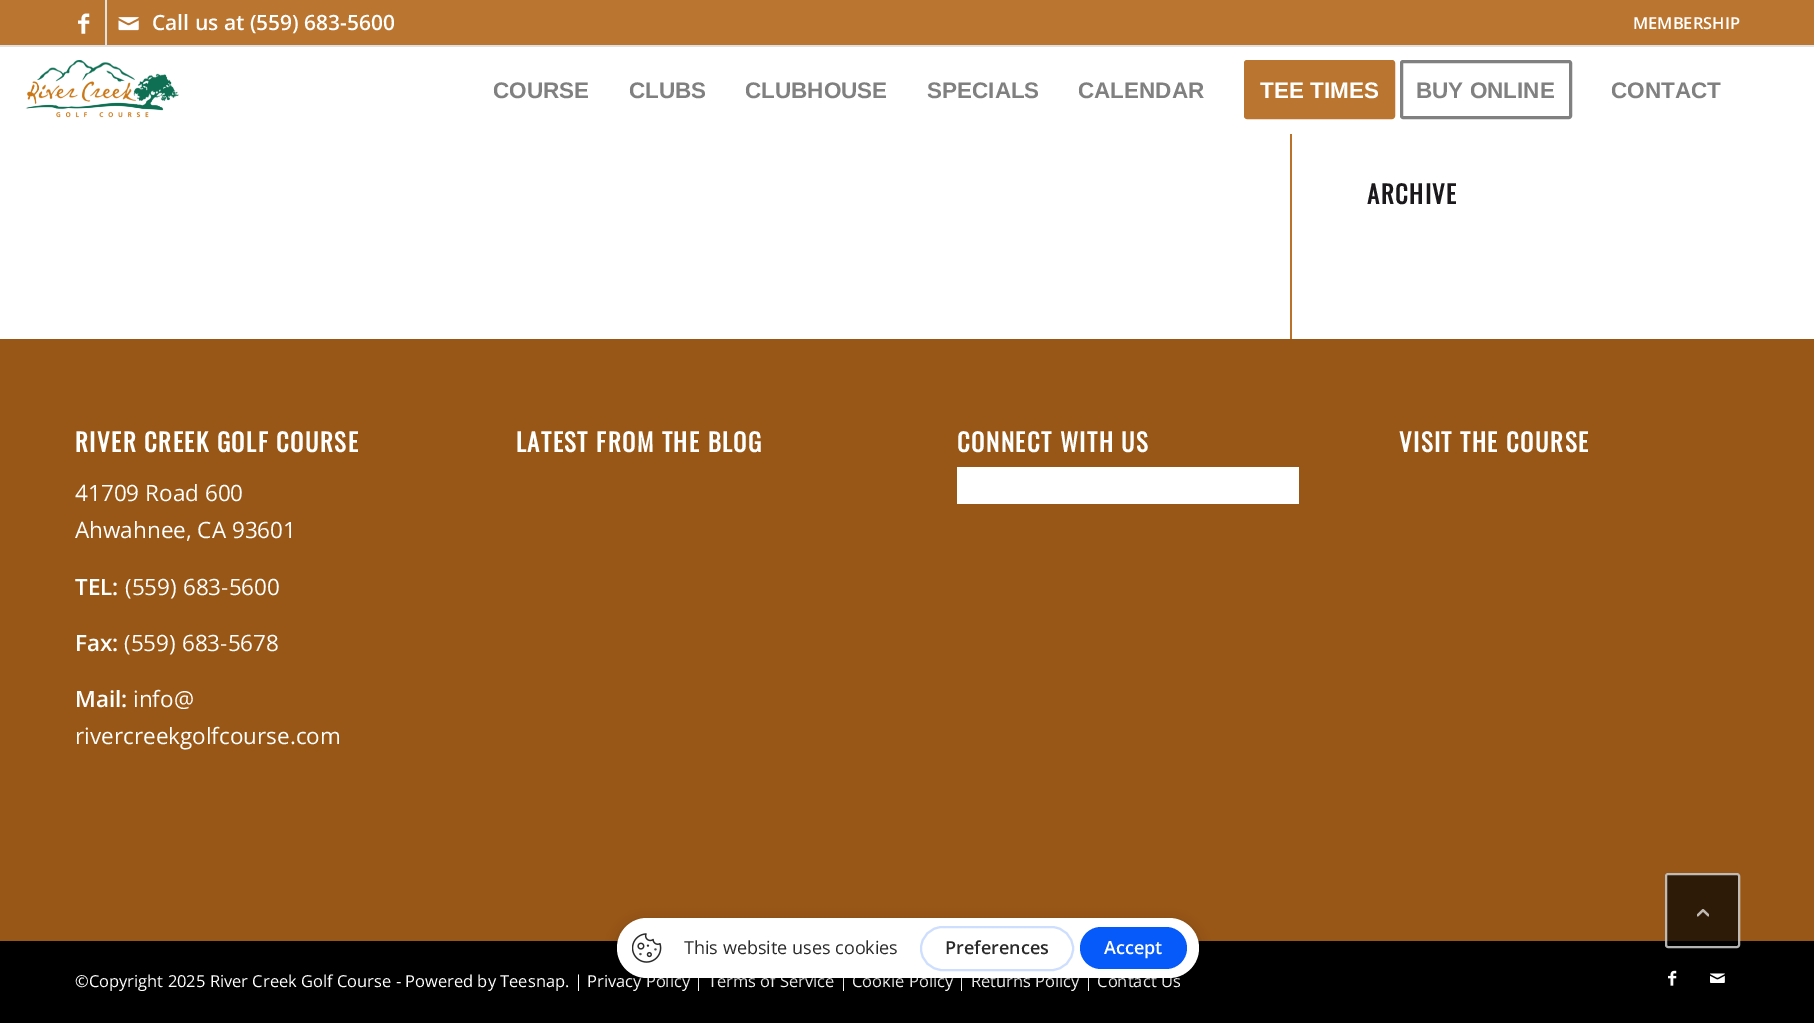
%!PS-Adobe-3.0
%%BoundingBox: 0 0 1814 1023
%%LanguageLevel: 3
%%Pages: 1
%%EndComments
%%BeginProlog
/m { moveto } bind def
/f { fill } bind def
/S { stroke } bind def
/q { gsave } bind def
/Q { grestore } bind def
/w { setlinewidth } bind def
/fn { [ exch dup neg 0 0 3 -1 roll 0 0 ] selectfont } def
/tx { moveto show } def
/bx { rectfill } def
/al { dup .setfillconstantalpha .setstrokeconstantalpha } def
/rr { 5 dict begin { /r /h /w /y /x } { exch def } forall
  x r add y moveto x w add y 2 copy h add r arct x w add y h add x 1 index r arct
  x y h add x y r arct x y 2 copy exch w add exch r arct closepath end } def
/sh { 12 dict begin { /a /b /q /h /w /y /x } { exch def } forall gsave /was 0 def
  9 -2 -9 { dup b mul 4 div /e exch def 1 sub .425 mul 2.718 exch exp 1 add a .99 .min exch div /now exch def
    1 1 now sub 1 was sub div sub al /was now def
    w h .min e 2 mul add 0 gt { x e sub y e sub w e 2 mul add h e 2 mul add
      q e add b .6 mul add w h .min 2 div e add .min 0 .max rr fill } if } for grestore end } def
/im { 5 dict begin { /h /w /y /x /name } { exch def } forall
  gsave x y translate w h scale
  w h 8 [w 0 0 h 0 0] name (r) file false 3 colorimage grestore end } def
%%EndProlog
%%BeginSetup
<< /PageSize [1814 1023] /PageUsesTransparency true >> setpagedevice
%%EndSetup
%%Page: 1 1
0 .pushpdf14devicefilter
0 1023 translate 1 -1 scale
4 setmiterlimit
1 setgray
0 0 1814 1023 bx
0.729 0.459 0.188 setrgbcolor
0 0 1814 45 bx
0.882 setgray
0 45 1814 2 bx
105 0 2 45 bx
(image0.raw) 78 13 12 21 im
(image1.raw) 118 17 21 14 im
/OpenSans-SemiBold 21 fn
1 setgray
(Call us at \(559\) 683-5600) 152 30 tx
/OpenSans-SemiBold 16.5 fn
(MEMBERSHIP) 1633 29 tx
(image2.raw) 25 60 154 58 im
/LiberationSans-Bold 22.5 fn
0.502 setgray
(COURSE) 493 98 tx
(CLUBS) 629 98 tx
(CLUBHOUSE) 745 98 tx
(SPECIALS) 927 98 tx
(CALENDAR) 1078 98 tx
0.729 0.459 0.188 setrgbcolor
1245.5 61.5 148 56 1.5 rr q f Q
3 w
S
1 setgray
(TEE TIMES) 1260 98 tx
0.502 setgray
1401.5 61.5 169 56 1.5 rr S
(BUY ONLINE) 1416 98 tx
(CONTACT) 1611 98 tx
0.729 0.447 0.165 setrgbcolor
1290 134 2 205 bx
/Oswald-Bold 24.75 fn
0.11 0.098 0.11 setrgbcolor
1367 204 m 1.5 0 (ARCHIVE) ashow
0.596 0.341 0.086 setrgbcolor
0 339 1814 602 bx
1 setgray
75 452 m 1.5 0 (RIVER CREEK GOLF COURSE) ashow
/OpenSans-Regular 22.5 fn
(41709 Road 600) 75 501 tx
(Ahwahnee, CA 93601) 75 538 tx
/OpenSans-SemiBold 22.5 fn
(TEL:) 75 595 tx
/OpenSans-Regular 22.5 fn
(\(559\) 683-5600) 125 595 tx
/OpenSans-SemiBold 22.5 fn
(Fax:) 75 651 tx
/OpenSans-Regular 22.5 fn
(\(559\) 683-5678) 124 651 tx
/OpenSans-SemiBold 22.5 fn
(Mail:) 75 707 tx
/OpenSans-Regular 22.5 fn
(info@) 133 707 tx
(rivercreekgolfcourse.com) 75 744 tx
/Oswald-Bold 24.75 fn
516 452 m 1.5 0 (LATEST FROM THE BLOG) ashow
957 452 m 1.5 0 (CONNECT WITH US) ashow
957 467 342 37 bx
1399 452 m 1.5 0 (VISIT THE COURSE) ashow
0 setgray
0 941 1814 82 bx
/OpenSans-Regular 16.5 fn
1 setgray
(©Copyright 2025 River Creek Golf Course - Powered by Teesnap. | Privacy Policy | Terms of Service | Cookie Policy | Returns Policy | Contact Us) 75 987 tx
(image3.raw) 1668 970 9 16 im
(image4.raw) 1710 973 15 10 im
0 setgray
617 921 582 60 30 6 0.2 sh
1 setgray
617 918 582 60 30 rr f
(image5.raw) 632 933 30 30 im
/OpenSans-Regular 18 fn
0.165 setgray
(This website uses cookies) 684 954 tx
0.804 0.871 0.996 setrgbcolor
2 w
921 927 152 43 21.5 rr S
/OpenSans-SemiBold 18 fn
0.165 setgray
(Preferences) 945 954 tx
0.024 0.353 0.976 setrgbcolor
1080 927 107 42 21 rr f
1 setgray
(Accept) 1104 954 tx
0.7 al
0 setgray
1665 873 75 75 3 rr f
1 setgray
1666 874 73 73 2 rr S
1 al
(image6.raw) 1697 909 12 8 im
.poppdf14devicefilter showpage
%%EOF
